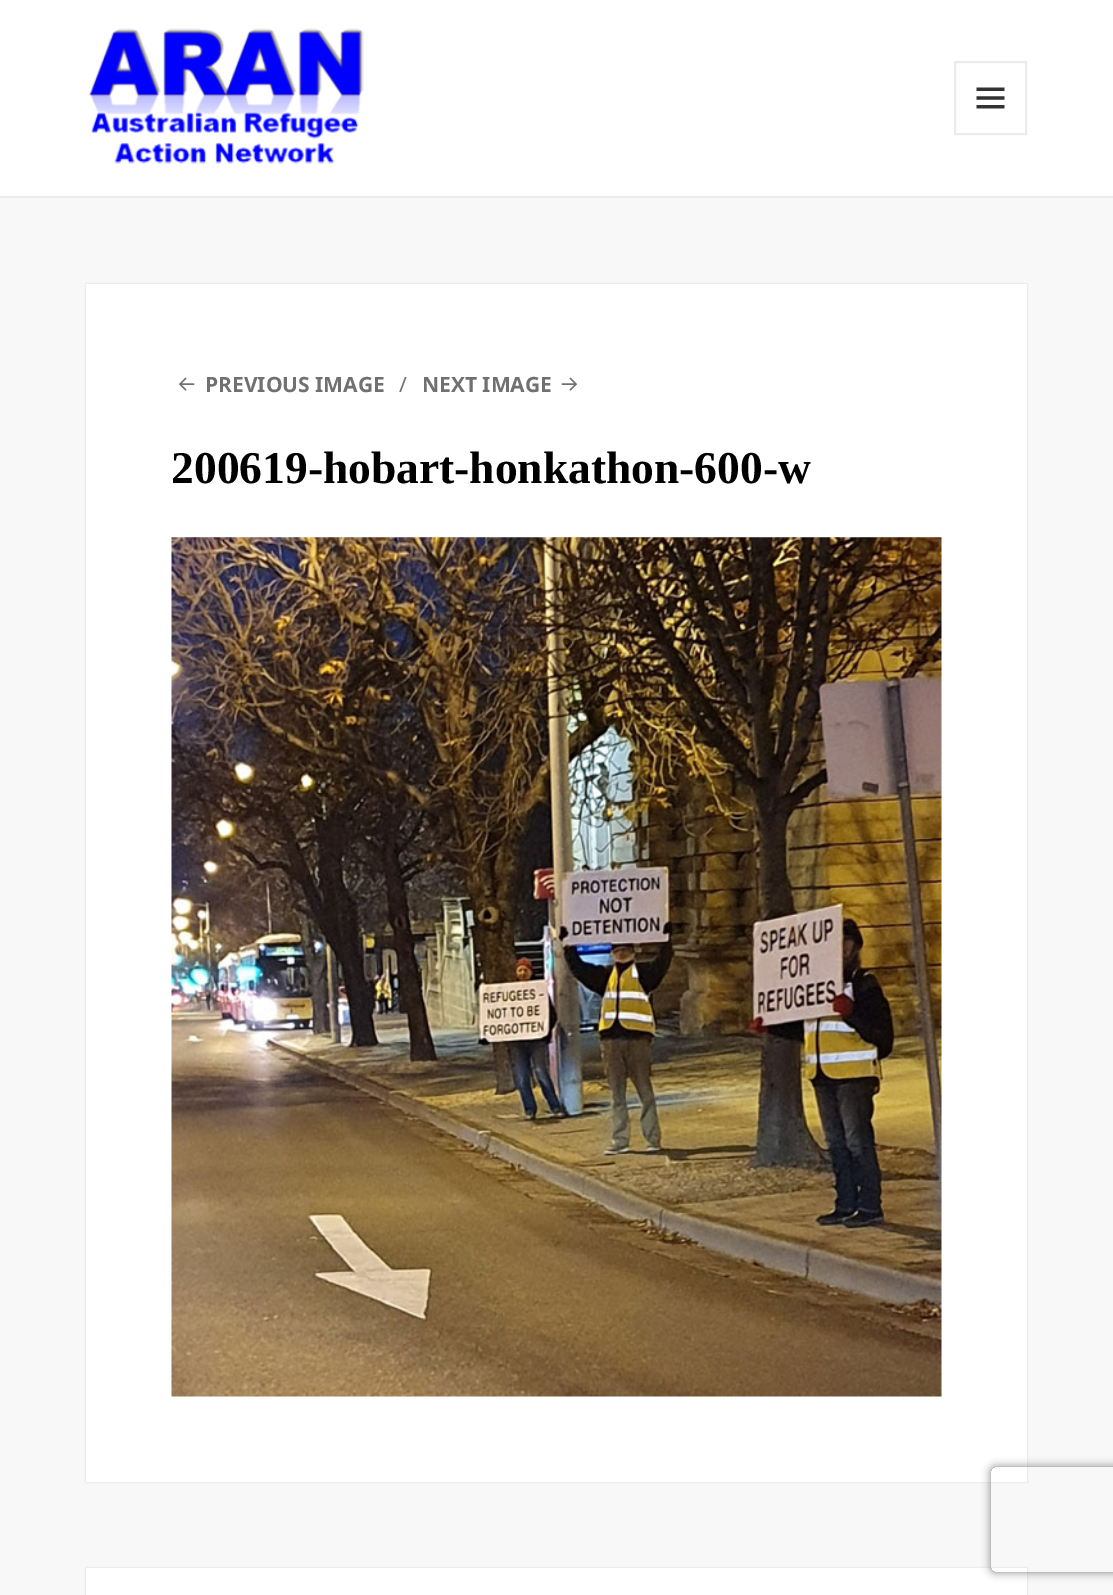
%!PS-Adobe-3.0
%%BoundingBox: 0 0 1113 1595
%%LanguageLevel: 3
%%Pages: 1
%%EndComments
%%BeginProlog
/m { moveto } bind def
/l { lineto } bind def
/c { curveto } bind def
/h { closepath } bind def
/q { gsave } bind def
/Q { grestore } bind def
/w { setlinewidth } bind def
/fn { [ exch dup neg 0 0 3 -1 roll 0 0 ] selectfont } def
/tx { moveto show } def
/bx { rectfill } def
/al { dup .setfillconstantalpha .setstrokeconstantalpha } def
/rr { 5 dict begin { /r /h /w /y /x } { exch def } forall
  x r add y moveto x w add y 2 copy h add r arct x w add y h add x 1 index r arct
  x y h add x y r arct x y 2 copy exch w add exch r arct closepath end } def
/sh { 12 dict begin { /a /b /q /h /w /y /x } { exch def } forall gsave /was 0 def
  9 -2 -9 { dup b mul 4 div /e exch def 1 sub .425 mul 2.718 exch exp 1 add a .99 .min exch div /now exch def
    1 1 now sub 1 was sub div sub al /was now def
    w h .min e 2 mul add 0 gt { x e sub y e sub w e 2 mul add h e 2 mul add
      q e add b .6 mul add w h .min 2 div e add .min 0 .max rr fill } if } for grestore end } def
/im { 5 dict begin { /h /w /y /x /name } { exch def } forall
  gsave x y translate w h scale
  w h 8 [w 0 0 h 0 0] name (r) file false 3 colorimage grestore end } def
%%EndProlog
%%BeginSetup
<< /PageSize [1113 1595] /PageUsesTransparency true >> setpagedevice
%%EndSetup
%%Page: 1 1
0 .pushpdf14devicefilter
0 1595 translate 1 -1 scale
4 setmiterlimit
0.973 setgray
0 0 1113 1595 bx
1 setgray
0 0 1113 196 bx
0.922 setgray
0 196 1113 2 bx
(image0.raw) 89 28 275 136 im
2 w
955 62 71 72 rectstroke
(image1.raw) 976 87 29 22 im
0 setgray
86 284 941 1198 0 1 0.15 sh
1 setgray
86 284 941 1198 bx
(image2.raw) 178 377 17 14 im
/NotoSans-Bold 21 fn
0.439 setgray
(PREVIOUS IMAGE) 205 392 tx
/NotoSans-Regular 21 fn
(∕) 399 392 tx
/NotoSans-Bold 21 fn
(NEXT IMAGE) 422 392 tx
(image3.raw) 561 377 17 14 im
/LiberationSerif-Bold 45.5 fn
0 setgray
(200619-hobart-honkathon-600-w) 171 483 tx
(image4.raw) 171 537 771 860 im
86 1568 941 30 0 1 0.15 sh
1 setgray
86 1568 941 27 bx
q
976 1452 m 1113 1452 l 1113 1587 l 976 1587 l h 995 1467 m 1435 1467 l 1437 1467 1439 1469 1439 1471 c 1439 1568 l 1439 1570 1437 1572 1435 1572 c 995 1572 l 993 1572 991 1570 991 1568 c 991 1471 l 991 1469 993 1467 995 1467 c h eoclip newpath
0.502 setgray
991 1467 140 105 4 4.5 1 sh
Q
.poppdf14devicefilter showpage
%%EOF
